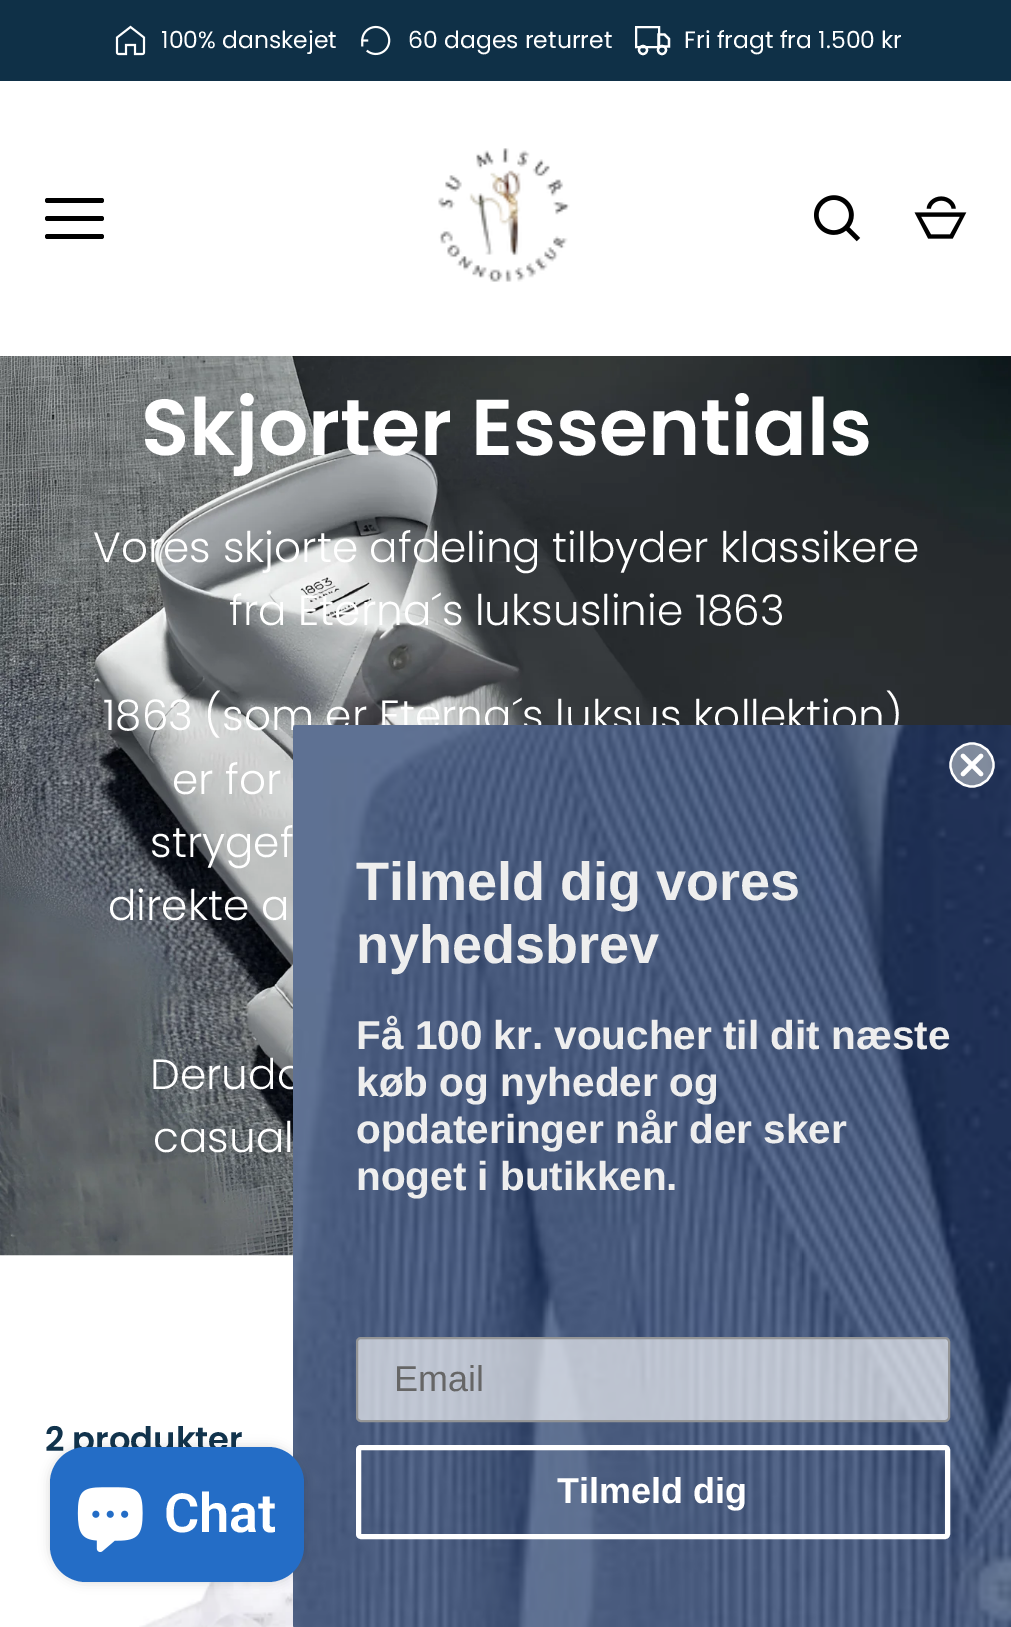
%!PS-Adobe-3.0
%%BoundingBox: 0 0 1011 1627
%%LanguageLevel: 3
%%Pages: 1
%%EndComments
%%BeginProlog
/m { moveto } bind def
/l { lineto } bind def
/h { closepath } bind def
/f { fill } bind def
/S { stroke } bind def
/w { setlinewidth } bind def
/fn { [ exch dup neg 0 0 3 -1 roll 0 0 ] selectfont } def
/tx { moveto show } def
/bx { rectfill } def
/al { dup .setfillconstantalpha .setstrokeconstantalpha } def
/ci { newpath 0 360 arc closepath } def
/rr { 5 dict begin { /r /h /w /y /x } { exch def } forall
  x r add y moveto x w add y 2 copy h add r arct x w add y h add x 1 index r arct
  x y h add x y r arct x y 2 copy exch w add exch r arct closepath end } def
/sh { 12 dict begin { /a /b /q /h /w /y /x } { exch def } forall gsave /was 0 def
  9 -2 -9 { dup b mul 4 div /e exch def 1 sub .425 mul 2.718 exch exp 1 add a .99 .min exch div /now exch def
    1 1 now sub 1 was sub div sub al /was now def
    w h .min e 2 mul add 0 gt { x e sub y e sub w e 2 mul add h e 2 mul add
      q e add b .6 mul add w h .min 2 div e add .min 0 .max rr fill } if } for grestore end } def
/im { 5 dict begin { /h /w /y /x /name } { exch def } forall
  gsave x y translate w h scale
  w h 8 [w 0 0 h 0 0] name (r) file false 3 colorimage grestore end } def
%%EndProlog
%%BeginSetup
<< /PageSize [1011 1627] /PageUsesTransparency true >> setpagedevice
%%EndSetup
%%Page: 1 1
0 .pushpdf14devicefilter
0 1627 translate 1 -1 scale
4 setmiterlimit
1 setgray
0 0 1011 1627 bx
0.059 0.188 0.278 setrgbcolor
0 0 1011 81 bx
(image0.raw) 115 25 31 31 im
/Poppins-Regular 23.5 fn
1 setgray
(100% danskejet) 161 48 tx
(image1.raw) 361 25 30 31 im
(60 dages returret) 408 48 tx
2 w
636 27 23 20 rectstroke
2.2 w
658.5 34.5 m 664.5 34.5 l 669 39 l 669 46.5 l 658.5 46.5 l h S
643 50 4 ci S
662 50 4 ci S
(Fri fragt fra 1.500 kr) 684 48 tx
0 setgray
45 198 59 5 2.5 rr f
45 216 59 5 2.5 rr f
45 234 59 5 2.5 rr f
(image2.raw) 438 148 132 134 im
(image3.raw) 814 195 47 47 im
(image4.raw) 914 196 53 43 im
(image5.raw) 0 356 1011 900 im
/Poppins-SemiBold 79.25 fn
1 setgray
(Skjorter Essentials) 141 455 tx
/Poppins-Light 42.2 fn
(Vores skjorte afdeling tilbyder klassikere) 93 562 tx
(fra Eterna´s luksuslinie 1863) 229 625 tx
(1863 \(som er Eterna´s luksus kollektion\)) 103 730 tx
(er for) 172 794 tx
(strygef) 150 857 tx
(direkte a) 108 920 tx
(Derudo) 150 1089 tx
(casual) 153 1152 tx
/Poppins-SemiBold 33.75 fn
0.067 0.2 0.298 setrgbcolor
(2 produkter) 45 1451 tx
(image6.raw) 139 1571 155 56 im
(image8.raw) 293 725 718 902 im
0 setgray
50 1447 254 135 36 5.5 0.15 sh
0.141 0.427 0.776 setrgbcolor
50 1447 254 135 36 rr f
(image7.raw) 77 1487 66 65 im
/Roboto-SemiBold 54 fn
1 setgray
(Chat) 164 1532 tx
0.65 al
0.706 0.733 0.765 setrgbcolor
972 765 21.5 ci f
1 al
1 setgray
972 765 21.5 ci S
4.5 w
1 setlinecap
1 setlinejoin
963 756 m 981 774 l 963 774 m 981 756 l h S
/LiberationSans-Bold 54 fn
0.933 setgray
(Tilmeld dig vores) 356 900 tx
(nyhedsbrev) 356 963 tx
/LiberationSans-Bold 40.5 fn
(Få 100 kr. voucher til dit næste) 356 1049 tx
(køb og nyheder og) 356 1096 tx
(opdateringer når der sker) 356 1143 tx
(noget i butikken.) 356 1190 tx
0.64 al
1 setgray
357 1338 592 83 4 rr f
1 al
0.58 0.584 0.588 setrgbcolor
2 w
0 setlinecap
0 setlinejoin
357 1338 592 83 4 rr S
/LiberationSans-Regular 36 fn
0.4 setgray
(Email) 394 1391 tx
1 setgray
5 w
358.5 1447.5 589 89 2.5 rr S
/LiberationSans-Bold 36 fn
(Tilmeld dig) 557 1503 tx
.poppdf14devicefilter showpage
%%EOF
